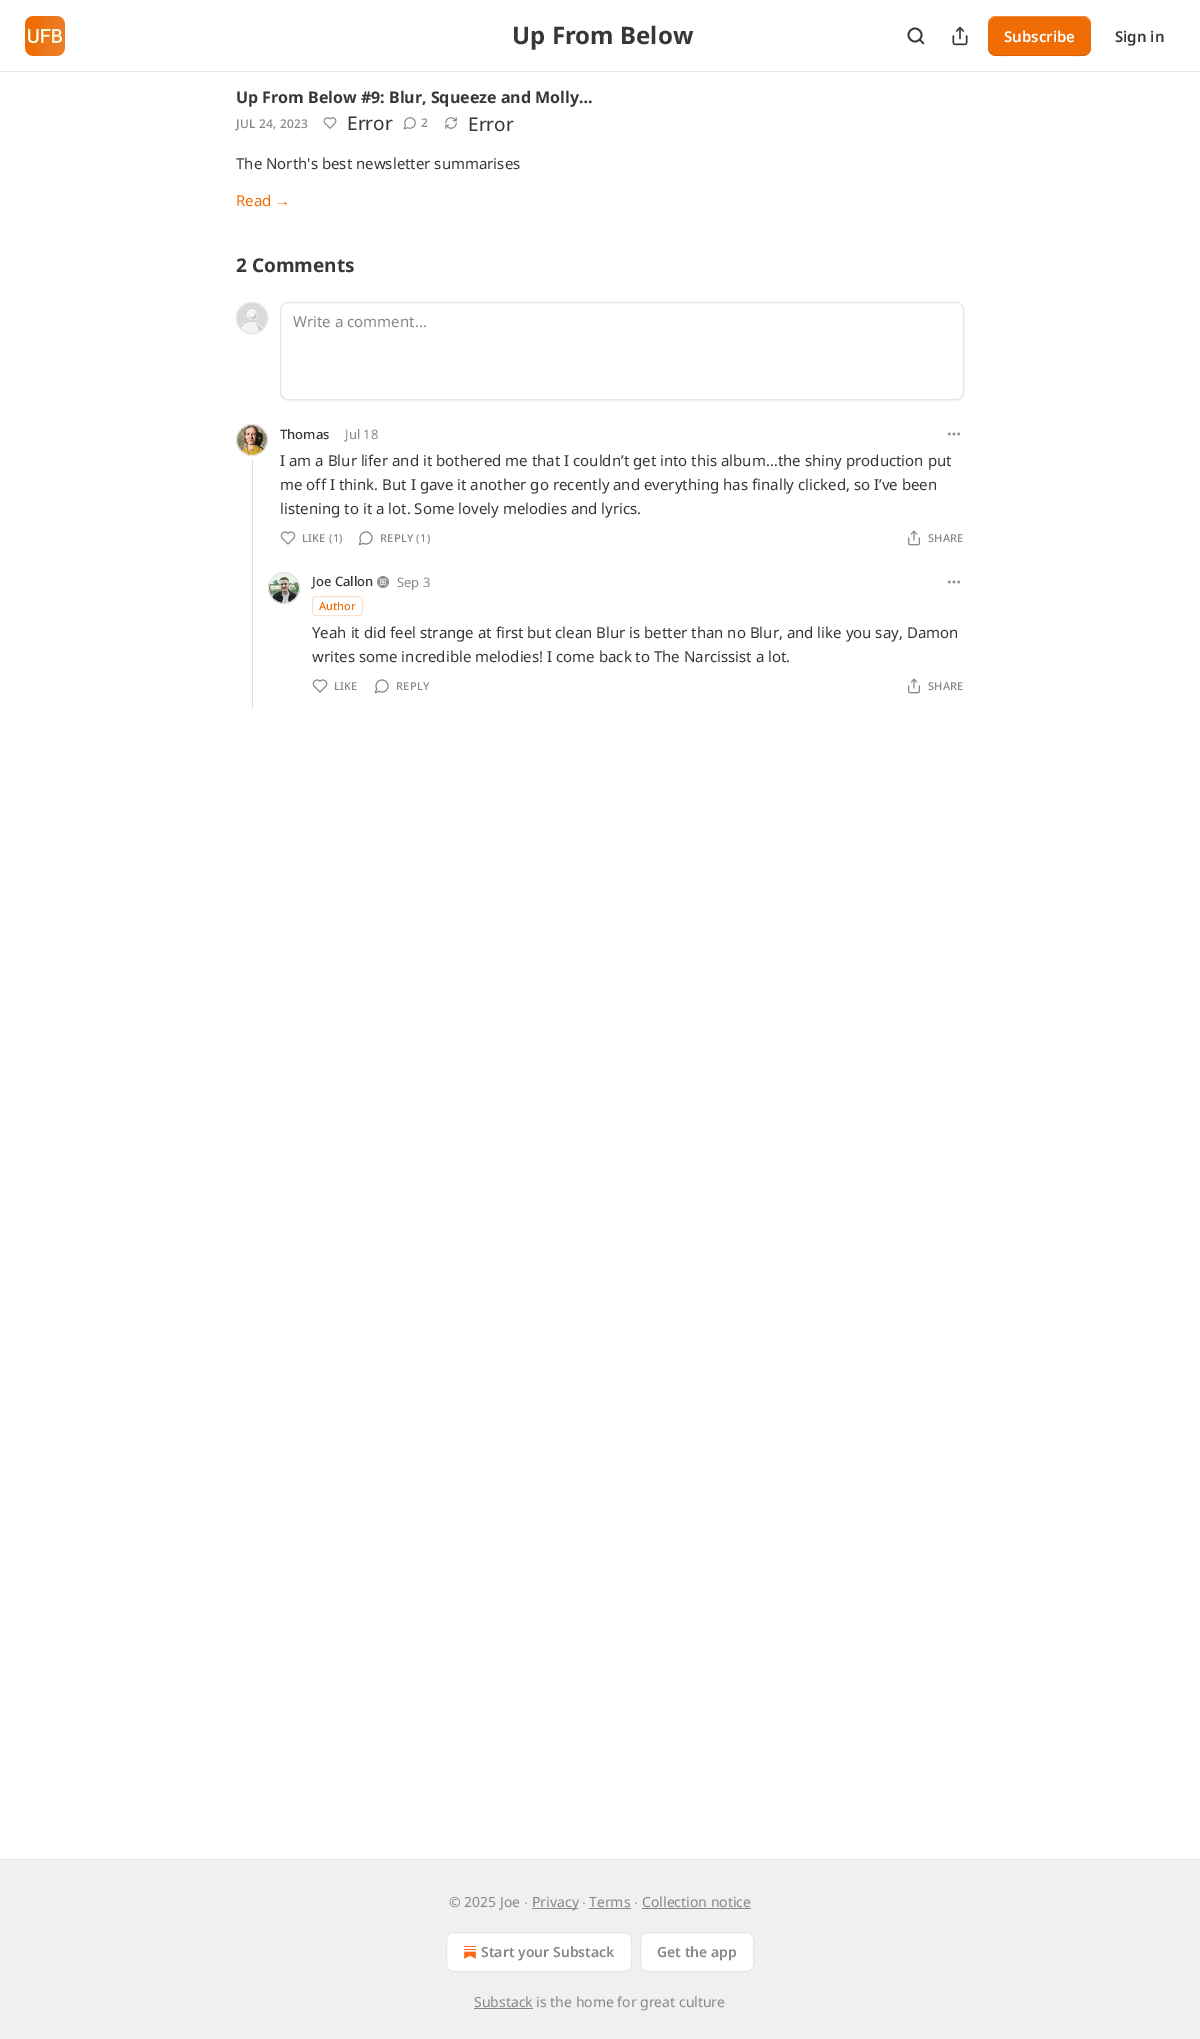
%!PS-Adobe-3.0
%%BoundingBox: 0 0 1200 2039
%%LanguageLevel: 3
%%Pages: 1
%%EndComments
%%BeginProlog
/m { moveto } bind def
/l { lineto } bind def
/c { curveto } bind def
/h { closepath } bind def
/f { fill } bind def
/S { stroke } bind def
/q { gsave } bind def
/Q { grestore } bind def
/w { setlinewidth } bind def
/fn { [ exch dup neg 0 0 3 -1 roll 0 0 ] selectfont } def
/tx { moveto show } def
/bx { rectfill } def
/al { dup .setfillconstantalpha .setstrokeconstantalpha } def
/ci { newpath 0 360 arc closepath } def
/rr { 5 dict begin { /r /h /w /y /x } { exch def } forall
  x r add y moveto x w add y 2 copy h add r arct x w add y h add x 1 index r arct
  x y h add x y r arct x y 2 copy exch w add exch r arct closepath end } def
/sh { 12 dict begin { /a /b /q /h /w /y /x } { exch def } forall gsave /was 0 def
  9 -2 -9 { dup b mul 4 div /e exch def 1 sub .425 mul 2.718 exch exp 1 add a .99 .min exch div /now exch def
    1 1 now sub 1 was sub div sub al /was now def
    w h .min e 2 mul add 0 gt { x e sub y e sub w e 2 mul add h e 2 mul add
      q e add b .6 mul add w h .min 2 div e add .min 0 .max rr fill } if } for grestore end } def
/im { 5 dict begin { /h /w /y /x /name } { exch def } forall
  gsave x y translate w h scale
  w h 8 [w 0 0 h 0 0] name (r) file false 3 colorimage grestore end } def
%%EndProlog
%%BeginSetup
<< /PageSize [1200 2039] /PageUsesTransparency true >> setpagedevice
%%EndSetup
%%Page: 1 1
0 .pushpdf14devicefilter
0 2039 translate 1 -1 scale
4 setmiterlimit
1 setgray
0 0 1200 2039 bx
0.902 setgray
0 71 1200 1 bx
(image0.raw) 25 16 40 40 im
/NotoSans-Bold 24 fn
0.212 0.216 0.216 setrgbcolor
(Up From Below) 512 44 tx
1.7 w
915 35 6.5 ci S
1 setlinecap
1 setlinejoin
923.5 43.5 m 920 40 l S
(image1.raw) 952 26 16 20 im
0.941 0.427 0.024 setrgbcolor
988 16 103 40 8 rr f
0.1 al
0 setgray
988 47 m 988 59 1002 56 1010 56 c 1068 56 l 1077 56 1091 59 1091 47 c 1091 51 1087 55 1083 55 c 996 55 l 992 55 988 51 988 47 c h f
0.2 al
1 setgray
996 17 m 1083 17 l 1087 17 1091 21 1091 25 c 1091 13 1077 16 1068 16 c 1010 16 l 1002 16 988 13 988 25 c 988 21 992 17 996 17 c h f
/NotoSans-SemiBold 15 fn
1 al
(Subscribe) 1004 42 tx
0.212 0.216 0.216 setrgbcolor
(Sign in) 1115 42 tx
/NotoSans-Bold 16 fn
(Up From Below #9: Blur, Squeeze and Molly…) 236 103 tx
/NotoSans-Medium 12 fn
0.525 0.529 0.529 setrgbcolor
236 128 m 0.25 0 (JUL 24, 2023) ashow
(image2.raw) 323 117 14 12 im
/NotoSans-Regular 19 fn
0.212 0.216 0.216 setrgbcolor
(Error) 347 130 tx
(image3.raw) 403 117 13 13 im
/NotoSans-Medium 12 fn
0.525 0.529 0.529 setrgbcolor
421 127 m 0.25 0 (2) ashow
(image4.raw) 445 117 12 12 im
/NotoSans-Regular 19 fn
0.212 0.216 0.216 setrgbcolor
(Error) 468 131 tx
/NotoSans-Regular 15 fn
(The North's best newsletter summarises) 236 169 tx
0.941 0.427 0.024 setrgbcolor
(Read) 236 206 tx
/LiberationSans-Regular 15 fn
(→) 275 206 tx
/NotoSans-Bold 19 fn
0.212 0.216 0.216 setrgbcolor
(2 Comments) 236 272 tx
0.902 setgray
1 w
0 setlinecap
0 setlinejoin
252 318 15.5 ci S
(image5.raw) 236 302 32 32 im
252 318 15.5 ci S
0 setgray
280 303 684 98 8 1 0.05 sh
1 setgray
280.5 302.5 683 97 7.5 rr q f Q
0.902 setgray
S
/NotoSans-Regular 15 fn
0.525 0.529 0.529 setrgbcolor
(Write a comment...) 293 327 tx
0.867 setgray
252 460 1 248 bx
0.902 setgray
252 440 15.5 ci S
(image6.raw) 236 424 32 32 im
252 440 15.5 ci S
/NotoSans-Medium 13 fn
0.212 0.216 0.216 setrgbcolor
(Thomas) 280 439 tx
/NotoSans-Regular 13 fn
0.525 0.529 0.529 setrgbcolor
(Jul 18) 345 439 tx
0.573 setgray
1.3 w
954 434 0.7 ci S
958.7 434 0.7 ci S
949.3 434 0.7 ci S
/NotoSans-Regular 15 fn
0.212 0.216 0.216 setrgbcolor
(I am a Blur lifer and it bothered me that I couldn’t get into this album…the shiny production put) 280 466 tx
(me off I think. But I gave it another go recently and everything has finally clicked, so I’ve been) 280 490 tx
(listening to it a lot. Some lovely melodies and lyrics.) 280 514 tx
(image7.raw) 280 531 16 14 im
/NotoSans-Medium 11 fn
0.525 0.529 0.529 setrgbcolor
302 542 m 0.25 0 (LIKE \(1\)) ashow
(image8.raw) 358 531 15 15 im
380 542 m 0.25 0 (REPLY \(1\)) ashow
(image9.raw) 908 530 12 16 im
928 542 m 0.25 0 (SHARE) ashow
0.902 setgray
1 w
284 588 15.5 ci S
(image10.raw) 268 572 32 32 im
284 588 15.5 ci S
/NotoSans-Medium 13 fn
0.212 0.216 0.216 setrgbcolor
(Joe Callon) 312 586 tx
(image11.raw) 377 576 12 12 im
/NotoSans-Regular 13 fn
0.525 0.529 0.529 setrgbcolor
(Sep 3) 397 587 tx
0.988 0.886 0.804 setrgbcolor
312.5 596.5 50 19 3.5 rr S
/NotoSans-Medium 11 fn
0.941 0.427 0.024 setrgbcolor
(Author) 319 610 tx
0.573 setgray
1.3 w
954 582 0.7 ci S
958.7 582 0.7 ci S
949.3 582 0.7 ci S
/NotoSans-Regular 15 fn
0.212 0.216 0.216 setrgbcolor
(Yeah it did feel strange at first but clean Blur is better than no Blur, and like you say, Damon) 312 638 tx
(writes some incredible melodies! I come back to The Narcissist a lot.) 312 662 tx
(image7.raw) 312 679 16 14 im
/NotoSans-Medium 11 fn
0.525 0.529 0.529 setrgbcolor
334 690 m 0.25 0 (LIKE) ashow
(image8.raw) 374 679 15 15 im
396 690 m 0.25 0 (REPLY) ashow
(image9.raw) 908 678 12 16 im
928 690 m 0.25 0 (SHARE) ashow
0.941 setgray
0 1860 1200 179 bx
0.902 setgray
0 1859 1200 1 bx
/NotoSans-Regular 14 fn
0.525 0.529 0.529 setrgbcolor
(© 2025 Joe) 449 1907 tx
/LiberationSans-Regular 14 fn
(∙) 524 1907 tx
532 1908 46 1 bx
/NotoSans-Regular 14 fn
(Privacy) 532 1907 tx
/LiberationSans-Regular 14 fn
(∙) 582 1907 tx
/NotoSans-Regular 14 fn
(Terms) 589 1907 tx
589 1908 42 1 bx
/LiberationSans-Regular 14 fn
(∙) 634 1907 tx
/NotoSans-Regular 14 fn
(Collection notice) 642 1907 tx
642 1908 109 1 bx
1 setgray
446.5 1932.5 185 39 7.5 rr q f Q
0.902 setgray
1 w
S
(image12.raw) 464 1946 12 13 im
/NotoSans-SemiBold 14 fn
0.525 0.529 0.529 setrgbcolor
(Start your Substack) 481 1957 tx
1 setgray
640.5 1932.5 113 39 7.5 rr q f Q
0.902 setgray
S
0.525 0.529 0.529 setrgbcolor
(Get the app) 657 1957 tx
474 2008 59 1 bx
/NotoSans-Regular 14 fn
(Substack is the home for great culture) 474 2007 tx
.poppdf14devicefilter showpage
%%EOF
